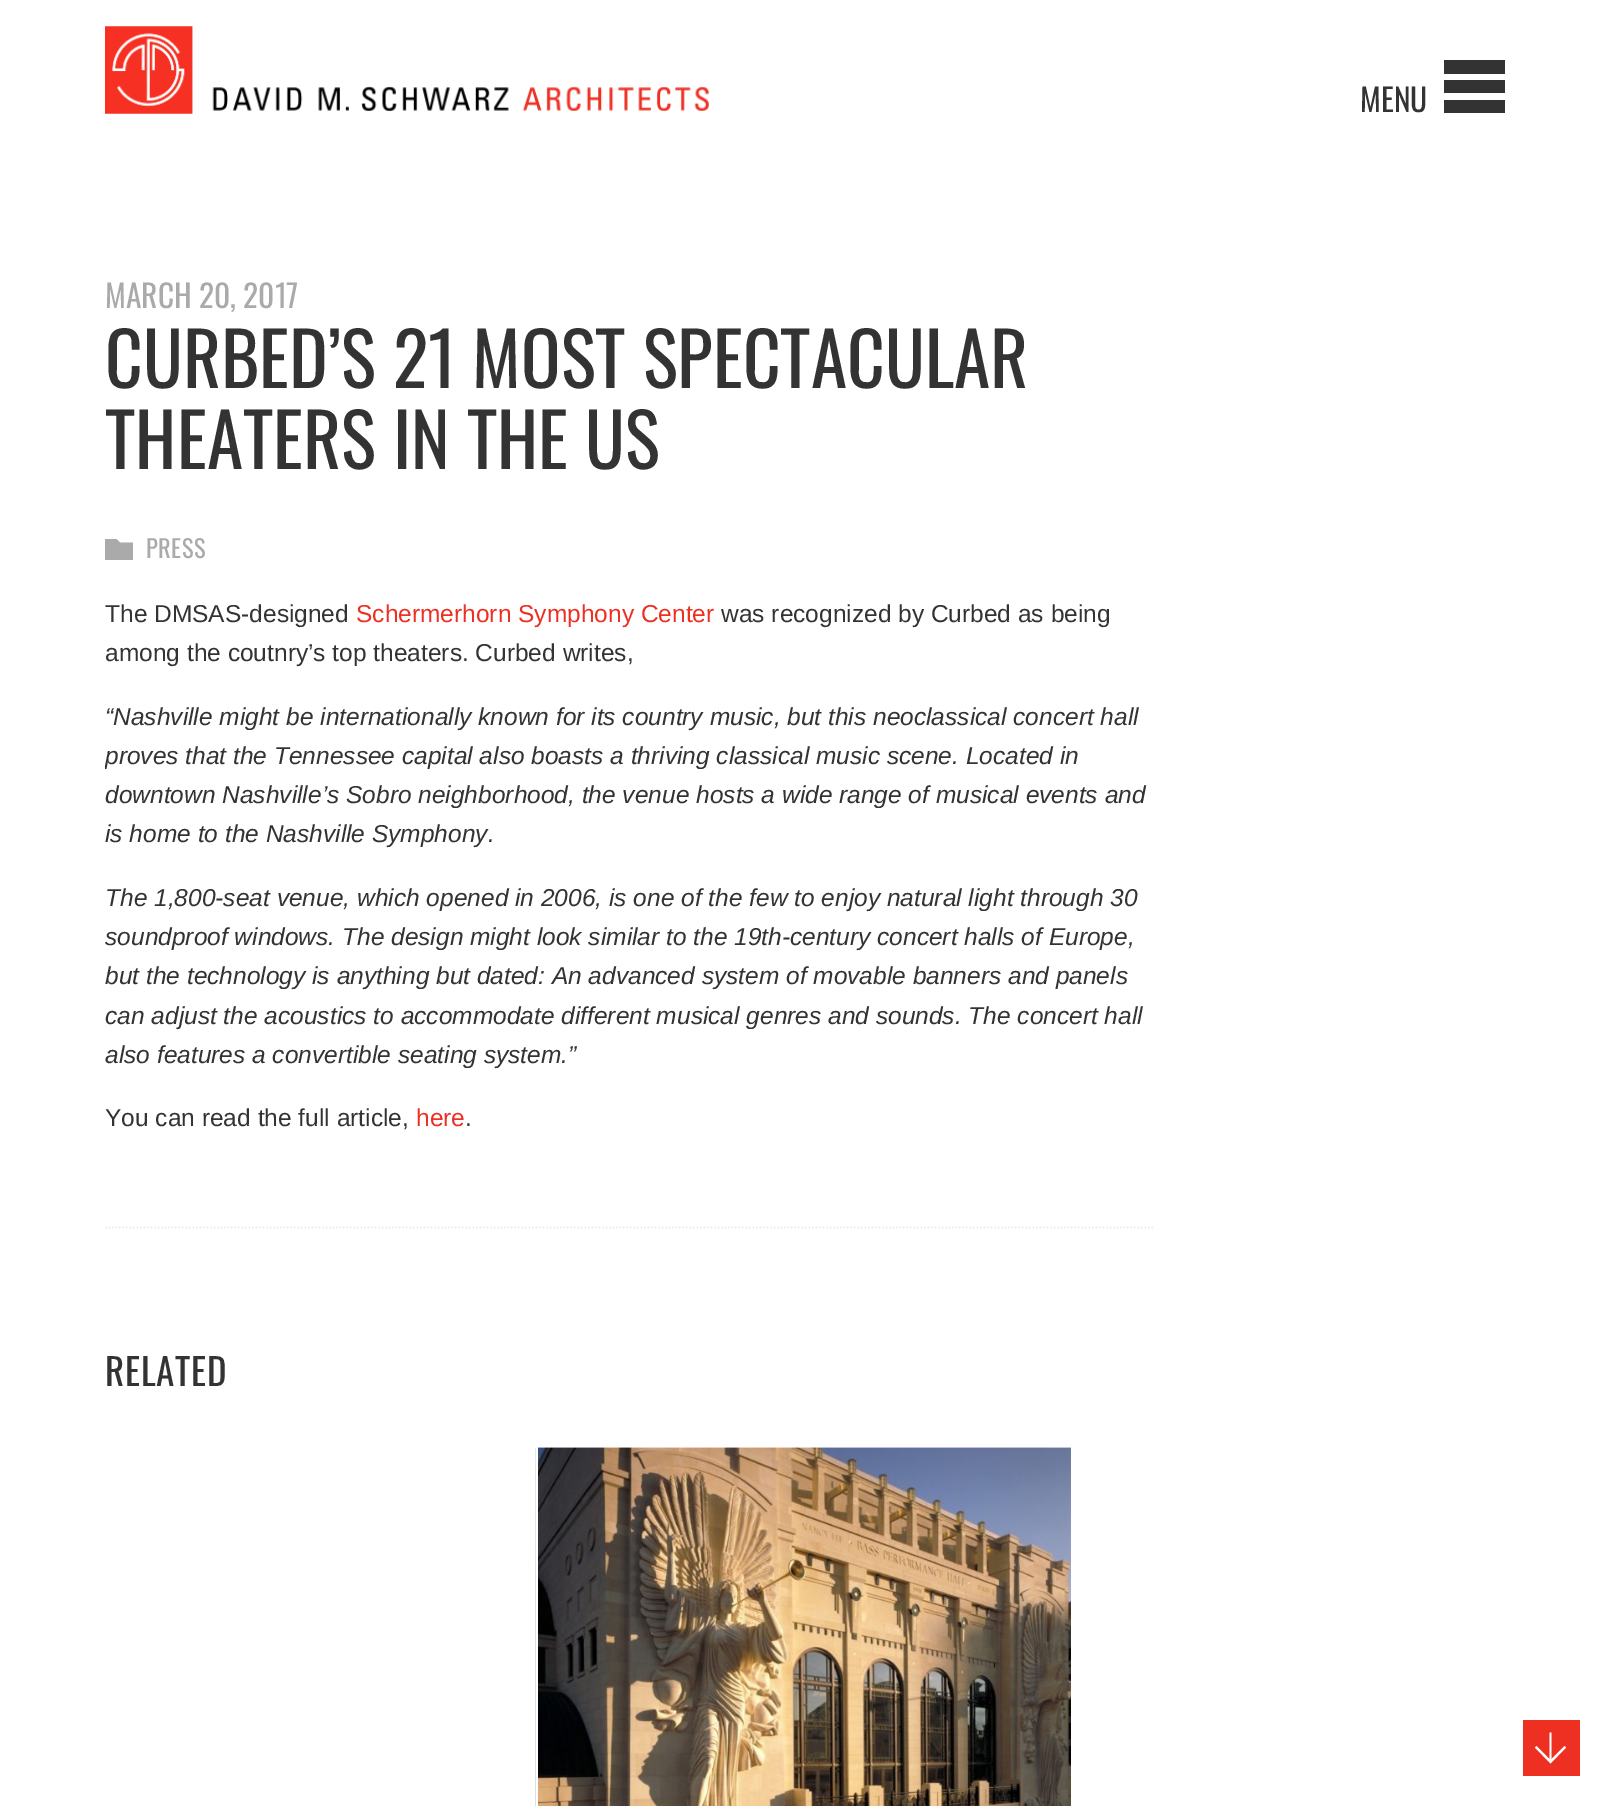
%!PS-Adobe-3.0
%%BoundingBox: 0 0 1609 1806
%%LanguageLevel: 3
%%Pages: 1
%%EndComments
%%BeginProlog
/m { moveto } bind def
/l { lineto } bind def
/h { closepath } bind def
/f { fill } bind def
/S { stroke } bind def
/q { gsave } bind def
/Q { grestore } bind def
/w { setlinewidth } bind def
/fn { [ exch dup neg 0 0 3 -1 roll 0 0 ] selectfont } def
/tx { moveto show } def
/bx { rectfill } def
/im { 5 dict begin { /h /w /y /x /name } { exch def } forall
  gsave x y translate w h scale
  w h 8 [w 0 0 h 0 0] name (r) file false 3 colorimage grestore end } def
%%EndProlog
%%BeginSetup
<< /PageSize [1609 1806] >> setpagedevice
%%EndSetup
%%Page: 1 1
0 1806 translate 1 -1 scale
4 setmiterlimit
1 setgray
0 0 1609 1806 bx
(image0.raw) 105 26 604 88 im
/Oswald-Regular 31.5 fn
0.2 setgray
(MENU) 1360 112 tx
1505 100 m 1505 113 l 1444 113 l 1444 100 l h 1505 80 m 1505 93 l 1444 93 l 1444 80 l h 1505 60 m 1505 74 l 1444 74 l 1444 60 l h f
0.667 setgray
(MARCH 20, 2017) 105 308 tx
0.933 setgray
1.8 w
[1.75 1.75] 0 setdash
105 1227.5 m 1155 1227.5 l S
/Oswald-Regular 73.5 fn
0.2 setgray
(CURBED’S 21 MOST SPECTACULAR) 105 388 tx
(THEATERS IN THE US) 105 469 tx
0.667 setgray
120 542.5 m 133 542.5 l 133 560 l 105 560 l 105 539 l 116.5 539 l h f
/Oswald-Regular 24.5 fn
146 558 m 0.5 0 (PRESS) ashow
/LiberationSans-Regular 24.5 fn
0.2 setgray
(The DMSAS-designed) 105 622 tx
0.933 0.188 0.137 setrgbcolor
(Schermerhorn Symphony Center) 356 622 tx
0.2 setgray
(was recognized by Curbed as being) 721 622 tx
(among the coutnry’s top theaters. Curbed writes,) 105 661 tx
/LiberationSans-Italic 24.5 fn
(“Nashville might be internationally known for its country music, but this neoclassical concert hall) 105 725 tx
q
105 315 1050 980 rectclip
(proves that the Tennessee capital also boasts a thriving classical music scene. Located in) 105 764 tx
Q
(downtown Nashville’s Sobro neighborhood, the venue hosts a wide range of musical events and) 105 803 tx
(is home to the Nashville Symphony.) 105 842 tx
(The 1,800-seat venue, which opened in 2006, is one of the few to enjoy natural light through 30) 105 906 tx
(soundproof windows. The design might look similar to the 19th-century concert halls of Europe,) 105 945 tx
(but the technology is anything but dated: An advanced system of movable banners and panels) 105 984 tx
(can adjust the acoustics to accommodate different musical genres and sounds. The concert hall) 105 1024 tx
(also features a convertible seating system.”) 105 1063 tx
/LiberationSans-Regular 24.5 fn
(You can read the full article,) 105 1126 tx
0.933 0.188 0.137 setrgbcolor
(here) 416 1126 tx
0.2 setgray
(.) 465 1126 tx
/Oswald-Regular 37 fn
105 1386 m 0.75 0 (RELATED) ashow
(image1.raw) 535 1447 536 359 im
1 setgray
536 1447 2 359 bx
0.933 0.188 0.137 setrgbcolor
1523 1720 57 56 bx
1 setgray
1566 1747.5 m 1550.5 1763.5 l 1535 1747.5 l 1536.5 1746 l 1549.5 1759 l 1549.5 1732.5 l 1551.5 1732.5 l 1551.5 1759 l 1564.5 1746 l h f
showpage
%%EOF
